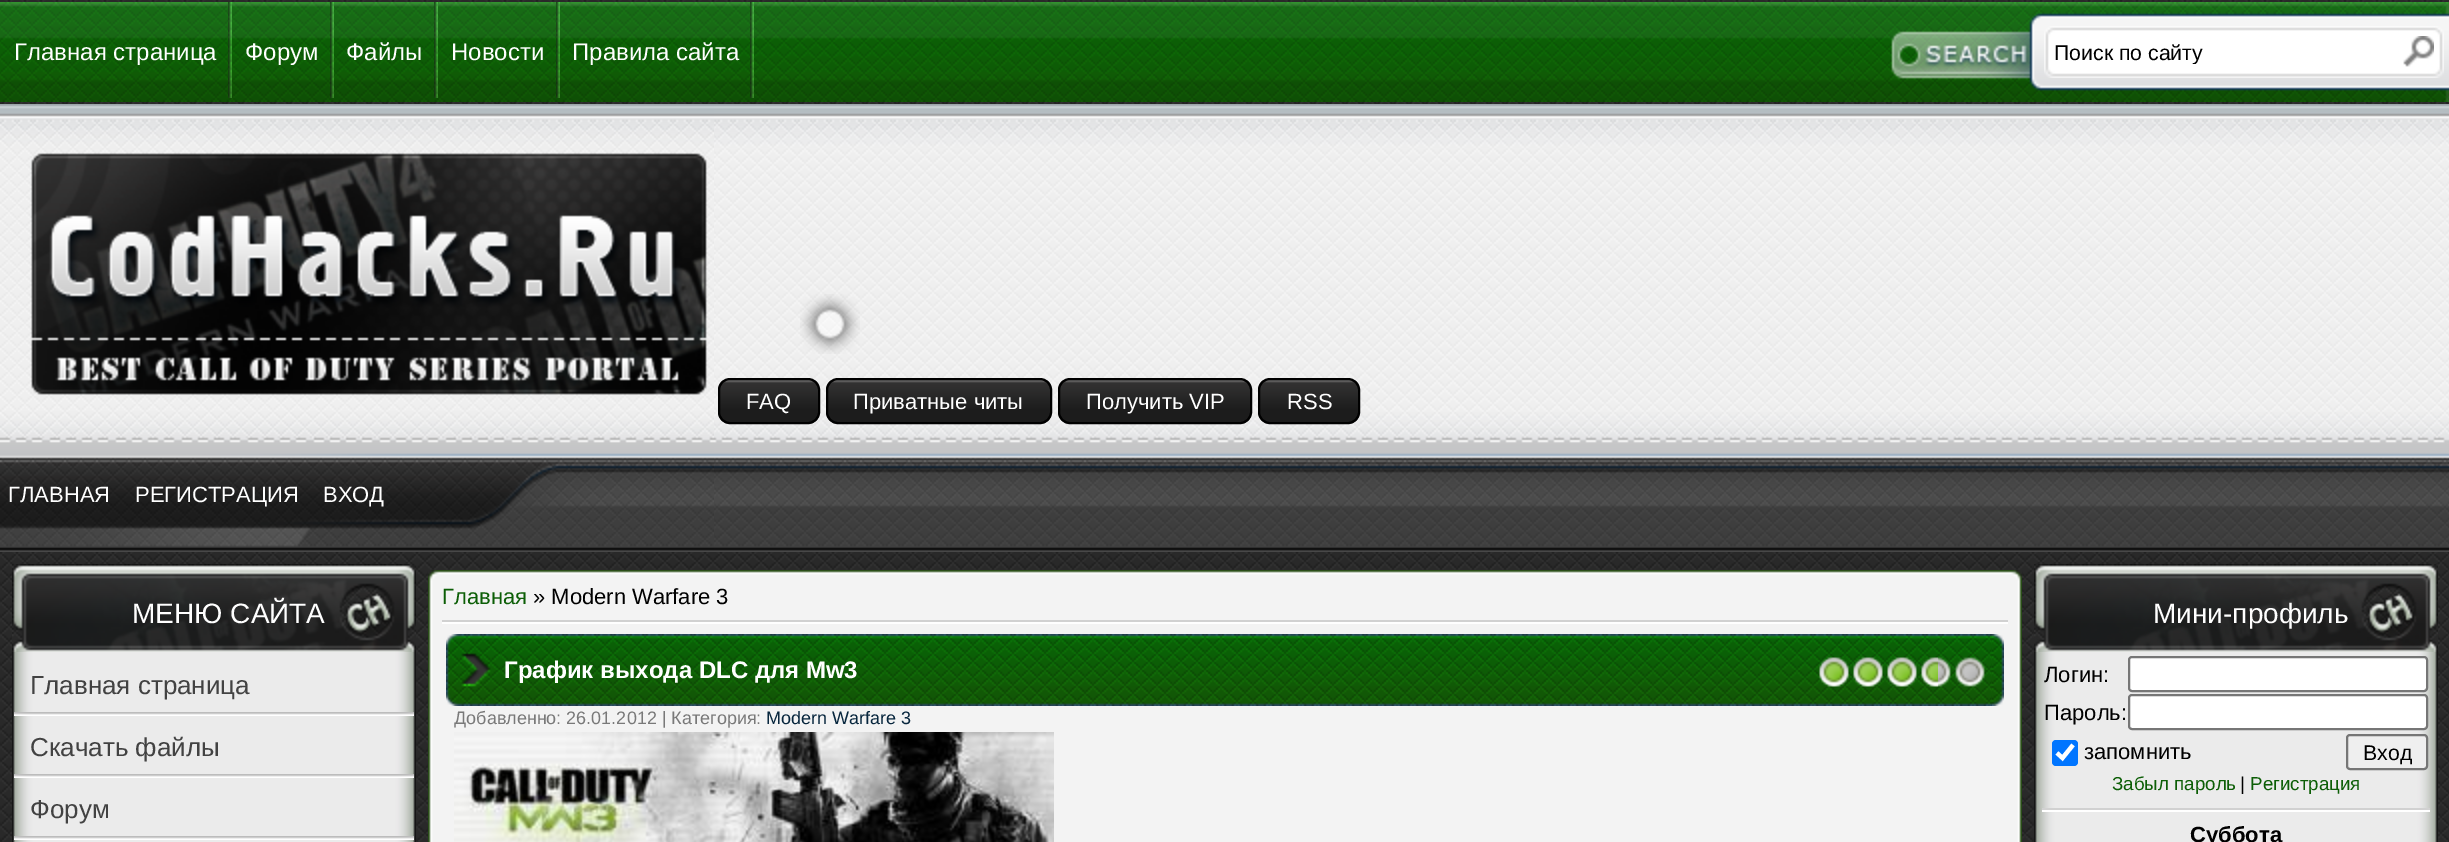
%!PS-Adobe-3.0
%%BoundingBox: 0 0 2449 842
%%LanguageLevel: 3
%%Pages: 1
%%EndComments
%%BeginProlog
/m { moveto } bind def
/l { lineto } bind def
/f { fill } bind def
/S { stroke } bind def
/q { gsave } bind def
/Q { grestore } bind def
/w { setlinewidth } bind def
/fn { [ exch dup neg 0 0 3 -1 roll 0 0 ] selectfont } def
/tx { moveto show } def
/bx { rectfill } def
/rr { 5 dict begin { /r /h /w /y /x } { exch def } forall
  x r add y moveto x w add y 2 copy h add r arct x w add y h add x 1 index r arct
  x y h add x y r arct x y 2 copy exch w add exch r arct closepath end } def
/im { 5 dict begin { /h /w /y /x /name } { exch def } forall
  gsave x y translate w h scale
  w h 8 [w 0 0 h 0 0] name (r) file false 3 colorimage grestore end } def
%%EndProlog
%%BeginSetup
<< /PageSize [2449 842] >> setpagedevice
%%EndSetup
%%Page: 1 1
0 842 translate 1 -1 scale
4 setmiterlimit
1 setgray
0 0 2449 842 bx
(image0.raw) 0 0 2449 842 im
(image1.raw) 0 2 1854 100 im
/LiberationSans-Regular 24 fn
(Главная страница) 14 60 tx
(image2.raw) 228 2 4 96 im
(Форум) 245 60 tx
(image2.raw) 330 2 4 96 im
(Файлы) 346 60 tx
(image2.raw) 434 2 4 96 im
(Новости) 451 60 tx
(image2.raw) 556 2 4 96 im
(Правила сайта) 572 60 tx
(image2.raw) 750 2 4 96 im
(image3.raw) 1854 2 595 100 im
(image4.raw) 2044 26 400 52 im
q
2054 40 366 24 rectclip
/LiberationSans-Regular 21.25 fn
0 setgray
(Поиск по сайту) 2054 60 tx
Q
(image5.raw) 2403 36 31 31 im
(image6.raw) 714 104 1735 448 im
(image7.raw) 800 294 30 30 im
(image8.raw) 830 294 30 30 im
(image9.raw) 800 324 30 30 im
(image10.raw) 830 324 30 30 im
(image11.raw) 718 380 102 44 im
(image12.raw) 826 380 226 44 im
(image13.raw) 1058 380 194 44 im
(image14.raw) 1258 380 102 44 im
0 setgray
2 w
719 379 100 44 11 rr S
/LiberationSans-Regular 22 fn
1 setgray
(FAQ) 746 409 tx
0 setgray
827 379 224 44 11 rr S
1 setgray
(Приватные читы) 853 409 tx
0 setgray
1059 379 192 44 11 rr S
1 setgray
(Получить VIP) 1086 409 tx
0 setgray
1259 379 100 44 11 rr S
1 setgray
(RSS) 1287 409 tx
(image15.raw) 0 104 714 448 im
(ГЛАВНАЯ) 8 502 tx
(РЕГИСТРАЦИЯ) 135 502 tx
(ВХОД) 323 502 tx
(image16.raw) 12 564 404 88 im
/LiberationSans-Regular 28 fn
(МЕНЮ САЙТА) 132 623 tx
(image17.raw) 12 652 404 190 im
(image18.raw) 14 712 400 4 im
/LiberationSans-Regular 26 fn
0.259 setgray
(Главная страница) 30 694 tx
(image18.raw) 14 774 400 4 im
(Скачать файлы) 30 756 tx
(image18.raw) 14 836 400 4 im
(Форум) 30 818 tx
(image19.raw) 428 570 12 12 im
(image20.raw) 440 570 1570 12 im
(image21.raw) 2010 570 12 12 im
(image22.raw) 428 582 12 260 im
0.953 setgray
440 582 1570 260 bx
/LiberationSans-Regular 22 fn
0.047 0.369 0.024 setrgbcolor
(Главная) 442 604 tx
0 setgray
(» Modern Warfare 3) 533 604 tx
0.82 setgray
442 620 1566 2 bx
1 setgray
442 622 1566 2 bx
(image23.raw) 446 634 54 72 im
(image24.raw) 500 634 1492 72 im
/LiberationSans-Bold 24 fn
(График выхода DLC для Mw3) 504 678 tx
(image25.raw) 1819 657 166 30 im
(image26.raw) 1819 657 119 30 im
(image27.raw) 1992 634 12 72 im
/LiberationSans-Regular 18 fn
0.475 setgray
(Добавленно: 26.01.2012 | Категория:) 454 724 tx
0.031 0.153 0.243 setrgbcolor
(Modern Warfare 3) 766 724 tx
(image28.raw) 454 732 600 110 im
(image29.raw) 2010 582 12 260 im
(image16.raw) 2034 564 404 88 im
/LiberationSans-Regular 28 fn
1 setgray
(Мини-профиль) 2153 623 tx
(image17.raw) 2034 652 404 190 im
/LiberationSans-Regular 22 fn
0 setgray
(Логин:) 2044 682 tx
1 setgray
2129 657 298 34 3 rr q f Q
0.463 setgray
S
0 setgray
(Пароль:) 2044 720 tx
1 setgray
2129 695 298 34 3 rr q f Q
0.463 setgray
S
0 0.459 1 setrgbcolor
2052 740 26 26 4 rr f
1 setgray
4.2 w
2057 753 m 2062.5 758 l 2073 745 l S
0 setgray
(запомнить) 2084 759 tx
0.937 setgray
2347 735 80 34 3 rr q f Q
0.463 setgray
2 w
S
/LiberationSans-Regular 21.25 fn
0 setgray
(Вход) 2363 760 tx
/LiberationSans-Regular 18.75 fn
0.047 0.369 0.024 setrgbcolor
(Забыл пароль) 2112 790 tx
0 setgray
(|) 2240 790 tx
0.047 0.369 0.024 setrgbcolor
(Регистрация) 2250 790 tx
0.82 setgray
2042 808 388 2 bx
1 setgray
2042 810 388 2 bx
/LiberationSans-Bold 22 fn
0 setgray
(Суббота) 2190 842 tx
showpage
%%EOF
